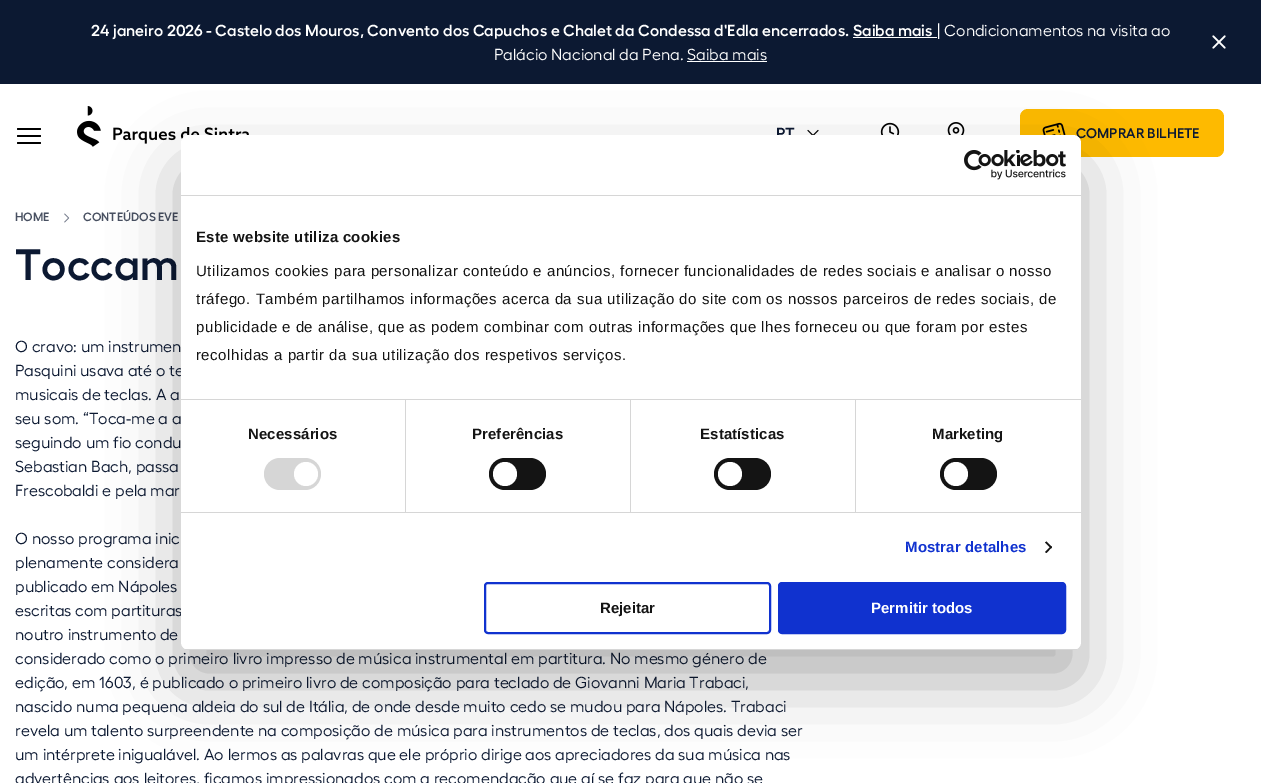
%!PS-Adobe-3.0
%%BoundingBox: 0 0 1261 783
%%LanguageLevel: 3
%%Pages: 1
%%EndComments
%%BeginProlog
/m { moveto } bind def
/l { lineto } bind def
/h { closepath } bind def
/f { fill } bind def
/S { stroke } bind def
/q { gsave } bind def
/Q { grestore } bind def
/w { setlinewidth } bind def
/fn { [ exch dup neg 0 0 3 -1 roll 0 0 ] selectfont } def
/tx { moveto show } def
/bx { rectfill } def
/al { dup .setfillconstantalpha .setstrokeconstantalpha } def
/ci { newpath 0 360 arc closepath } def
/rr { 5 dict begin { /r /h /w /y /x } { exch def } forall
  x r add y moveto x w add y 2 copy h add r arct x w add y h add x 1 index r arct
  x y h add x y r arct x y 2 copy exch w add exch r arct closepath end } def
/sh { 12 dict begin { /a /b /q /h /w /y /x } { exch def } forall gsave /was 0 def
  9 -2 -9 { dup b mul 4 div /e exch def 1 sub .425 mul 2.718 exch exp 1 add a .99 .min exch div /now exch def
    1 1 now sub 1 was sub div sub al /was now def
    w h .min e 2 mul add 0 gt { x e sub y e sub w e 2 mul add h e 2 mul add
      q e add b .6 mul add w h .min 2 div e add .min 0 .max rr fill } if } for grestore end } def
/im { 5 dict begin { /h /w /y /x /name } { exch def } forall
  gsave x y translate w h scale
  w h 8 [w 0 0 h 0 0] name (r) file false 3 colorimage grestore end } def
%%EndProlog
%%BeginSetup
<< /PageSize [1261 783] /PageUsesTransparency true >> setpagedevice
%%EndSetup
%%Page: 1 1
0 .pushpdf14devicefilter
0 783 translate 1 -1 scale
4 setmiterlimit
1 setgray
0 0 1261 783 bx
0.047 0.098 0.196 setrgbcolor
0 0 1261 84 bx
/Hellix-SemiBold 16 fn
1 setgray
(24 janeiro 2026 - Castelo dos Mouros, Convento dos Capuchos e Chalet da Condessa d'Edla encerrados. Saiba mais) 91 36 tx
853 37 84 1 bx
/Hellix-Regular 16 fn
(| Condicionamentos na visita ao) 937 36 tx
(Palácio Nacional da Pena. Saiba mais) 494 60 tx
687 61 80 1 bx
(image0.raw) 1212 35 14 14 im
0 setgray
17 128 24 2 1 rr f
17 135 24 2 1 rr f
17 142 24 2 1 rr f
(image1.raw) 77 106 172 41 im
/Hellix-SemiBold 16 fn
0.047 0.098 0.196 setrgbcolor
(PT) 776 139 tx
(image2.raw) 807 129 12 6 im
(image3.raw) 880 122 20 13 im
(image4.raw) 947 122 18 13 im
0.996 0.729 0 setrgbcolor
1020 109 204 48 8 rr f
(image5.raw) 1042 122 24 13 im
/Hellix-SemiBold 14 fn
0.047 0.098 0.196 setrgbcolor
(COMPRAR BILHETE) 1076 138 tx
/Hellix-SemiBold 12 fn
0.282 0.314 0.38 setrgbcolor
(HOME) 15 221 tx
(image6.raw) 64 213 6 10 im
(CONTEÚDOS EVE) 83 221 tx
/Hellix-SemiBold 44 fn
0.047 0.098 0.196 setrgbcolor
(Toccam) 15 280 tx
/Hellix-Regular 16 fn
(O cravo: um instrumen) 15 352 tx
(Pasquini usava até o te) 15 376 tx
(musicais de teclas. A a) 15 400 tx
(seu som. “Toca-me a a) 15 424 tx
(seguindo um fio condu) 15 448 tx
(Sebastian Bach, passa) 15 472 tx
(Frescobaldi e pela mar) 15 496 tx
(O nosso programa inic) 15 544 tx
(plenamente considera) 15 568 tx
(publicado em Nápoles) 15 592 tx
(escritas com partituras) 15 616 tx
(noutro instrumento de) 15 640 tx
(considerado como o primeiro livro impresso de música instrumental em partitura. No mesmo género de) 15 664 tx
(edição, em 1603, é publicado o primeiro livro de composição para teclado de Giovanni Maria Trabaci,) 15 688 tx
(nascido numa pequena aldeia do sul de Itália, de onde desde muito cedo se mudou para Nápoles. Trabaci) 15 712 tx
(revela um talento surpreendente na composição de música para instrumentos de teclas, dos quais devia ser) 15 736 tx
(um intérprete inigualável. Ao lermos as palavras que ele próprio dirige aos apreciadores da sua música nas) 15 760 tx
(advertências aos leitores, ficamos impressionados com a recomendação que aí se faz para que não se) 15 784 tx
0 setgray
181 167 900 515 8 34 0.3 sh
1 setgray
181 135 900 515 8 rr f
0.839 setgray
181 195 900 1 bx
(image7.raw) 964 150 102 30 im
181 399 900 1 bx
/LiberationSans-Bold 15 fn
0.078 setgray
196 242 m 0.25 0 (Este website utiliza cookies) ashow
/LiberationSans-Regular 15 fn
196 276 m 0.5 0 (Utilizamos cookies para personalizar conteúdo e anúncios, fornecer funcionalidades de redes sociais e analisar o nosso) ashow
196 304 m 0.5 0 (tráfego. Também partilhamos informações acerca da sua utilização do site com os nossos parceiros de redes sociais, de) ashow
196 332 m 0.5 0 (publicidade e de análise, que as podem combinar com outras informações que lhes forneceu ou que foram por estes) ashow
196 360 m 0.5 0 (recolhidas a partir da sua utilização dos respetivos serviços.) ashow
0.839 setgray
181 512 900 1 bx
405 400 1 112 bx
/LiberationSans-Bold 15 fn
0.078 setgray
248 439 m 0.1 0 (Necessários) ashow
0.839 setgray
264 458 57 32 16 rr f
1 setgray
306 474 12 ci f
0.839 setgray
630 400 1 112 bx
0.078 setgray
472 439 m 0.1 0 (Preferências) ashow
489 458 57 32 16 rr f
1 setgray
505 474 12 ci f
0.839 setgray
855 400 1 112 bx
0.078 setgray
700 439 m 0.1 0 (Estatísticas) ashow
714 458 57 32 16 rr f
1 setgray
730 474 12 ci f
0.078 setgray
932 439 m 0.1 0 (Marketing) ashow
940 458 57 32 16 rr f
1 setgray
956 474 12 ci f
0.063 0.196 0.812 setrgbcolor
905 552 m 0.1 0 (Mostrar detalhes) ashow
0.078 setgray
1046.5 541.5 m 1052 547 l 1051 548.5 l 1045 542.5 l h f
1051 546 m 1052 547 l 1046.5 553 l 1045 552 l h f
q
181 135 900 515 8 rr clip newpath
0.839 setgray
181 649 900 1 bx
Q
0.063 0.196 0.812 setrgbcolor
2 w
485 583 285 50 3 rr S
0.078 setgray
(Rejeitar) 600 613 tx
0.063 0.196 0.812 setrgbcolor
779 583 286 50 3 rr q f Q
S
1 setgray
(Permitir todos) 871 613 tx
.poppdf14devicefilter showpage
%%EOF
